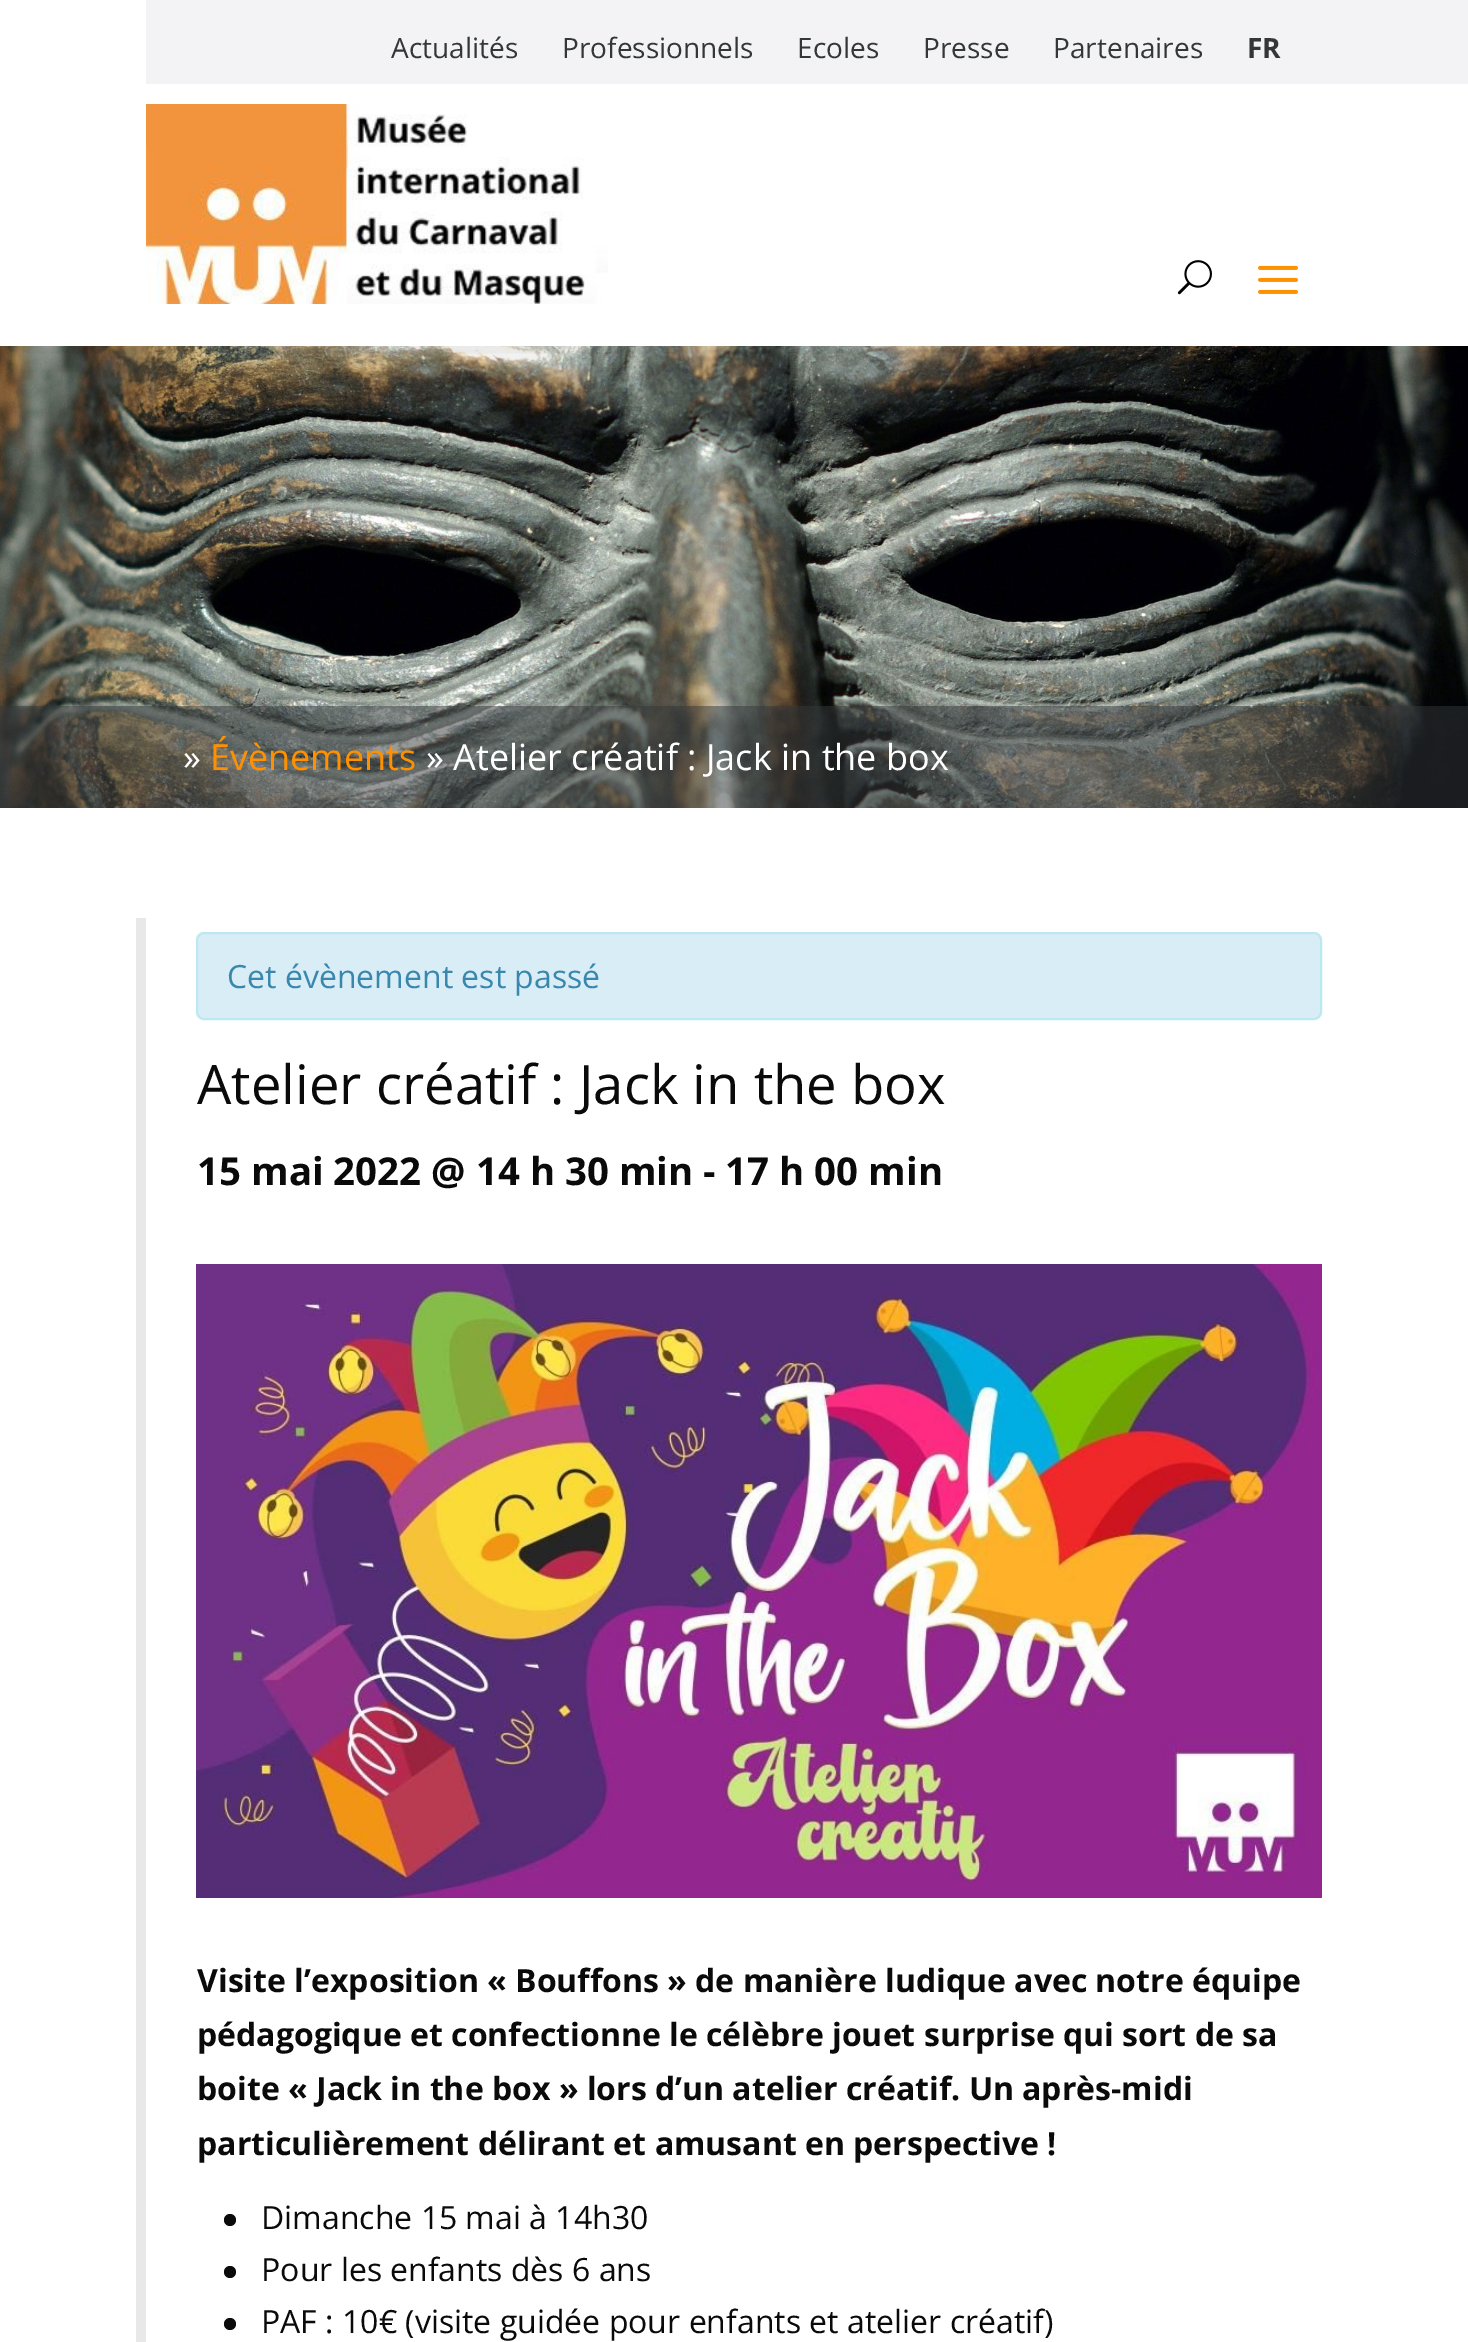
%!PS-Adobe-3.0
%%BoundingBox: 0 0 1468 2342
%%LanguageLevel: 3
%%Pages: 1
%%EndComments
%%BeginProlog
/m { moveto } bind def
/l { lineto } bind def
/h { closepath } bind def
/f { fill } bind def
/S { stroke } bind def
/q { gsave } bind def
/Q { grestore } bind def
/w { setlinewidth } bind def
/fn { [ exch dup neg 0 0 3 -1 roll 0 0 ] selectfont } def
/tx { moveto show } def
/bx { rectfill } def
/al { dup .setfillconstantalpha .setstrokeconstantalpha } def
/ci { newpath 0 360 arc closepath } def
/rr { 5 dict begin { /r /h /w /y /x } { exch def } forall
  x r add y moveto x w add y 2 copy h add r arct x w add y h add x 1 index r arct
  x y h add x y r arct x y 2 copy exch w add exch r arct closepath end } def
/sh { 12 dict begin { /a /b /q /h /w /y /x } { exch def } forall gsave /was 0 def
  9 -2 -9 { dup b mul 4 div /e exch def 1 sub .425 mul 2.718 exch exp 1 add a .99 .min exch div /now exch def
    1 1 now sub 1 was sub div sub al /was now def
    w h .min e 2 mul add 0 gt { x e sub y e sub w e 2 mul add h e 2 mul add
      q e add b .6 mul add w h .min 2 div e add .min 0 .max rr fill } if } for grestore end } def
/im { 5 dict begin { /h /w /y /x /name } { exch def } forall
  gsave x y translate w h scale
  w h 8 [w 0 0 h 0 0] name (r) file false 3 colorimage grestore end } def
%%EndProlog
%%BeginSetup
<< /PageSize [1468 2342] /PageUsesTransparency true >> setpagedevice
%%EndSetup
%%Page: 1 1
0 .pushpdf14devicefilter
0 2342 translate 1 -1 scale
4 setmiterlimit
1 setgray
0 0 1468 2342 bx
(image3.raw) 0 346 1468 462 im
q
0 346 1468 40 rectclip
0 setgray
12 22 1444 322 0 38 0.15 sh
Q
0.953 0.953 0.961 setrgbcolor
146 0 1322 84 bx
/OpenSans-Regular 28 fn
0.2 0.216 0.227 setrgbcolor
(Actualités) 391 58 tx
(Professionnels) 562 58 tx
(Ecoles) 797 58 tx
(Presse) 923 58 tx
(Partenaires) 1053 58 tx
/OpenSans-Bold 28 fn
(FR) 1247 58 tx
(image0.raw) 146 104 462 200 im
(image1.raw) 1177 260 35 35 im
(image2.raw) 1258 265 40 29 im
0.5 al
0 706 1468 102 bx
/OpenSans-Regular 36 fn
1 al
1 setgray
(») 183 770 tx
1 0.569 0 setrgbcolor
(Évènements) 210 770 tx
1 setgray
(» Atelier créatif : Jack in the box) 426 770 tx
0.91 setgray
136 918 m 136 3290 l 1312 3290 l 1312 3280 l 146 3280 l 146 918 l h f
0.851 0.929 0.969 setrgbcolor
197 933 1124 86 7 rr q f Q
0.737 0.91 0.945 setrgbcolor
2 w
S
/OpenSans-Regular 32 fn
0.227 0.529 0.678 setrgbcolor
(Cet évènement est passé) 227 988 tx
/OpenSans-Regular 54.4 fn
0.039 setgray
(Atelier créatif : Jack in the box) 197 1104 tx
/OpenSans-Bold 38.4 fn
(15 mai 2022 @ 14 h 30 min) 197 1185 tx
(- 17 h 00 min) 703 1185 tx
(image4.raw) 196 1264 1126 634 im
/OpenSans-Bold 32 fn
(Visite l’exposition « Bouffons » de manière ludique avec notre équipe) 197 1992 tx
(pédagogique et confectionne le célèbre jouet surprise qui sort de sa) 197 2046 tx
(boite « Jack in the box » lors d’un atelier créatif. Un après-midi) 197 2100 tx
(particulièrement délirant et amusant en perspective !) 197 2155 tx
230 2220 6 ci f
/OpenSans-Regular 32 fn
(Dimanche 15 mai à 14h30) 261 2229 tx
230 2272 6 ci f
(Pour les enfants dès 6 ans) 261 2281 tx
230 2324 6 ci f
(PAF : 10€ \(visite guidée pour enfants et atelier créatif\)) 261 2333 tx
.poppdf14devicefilter showpage
%%EOF
